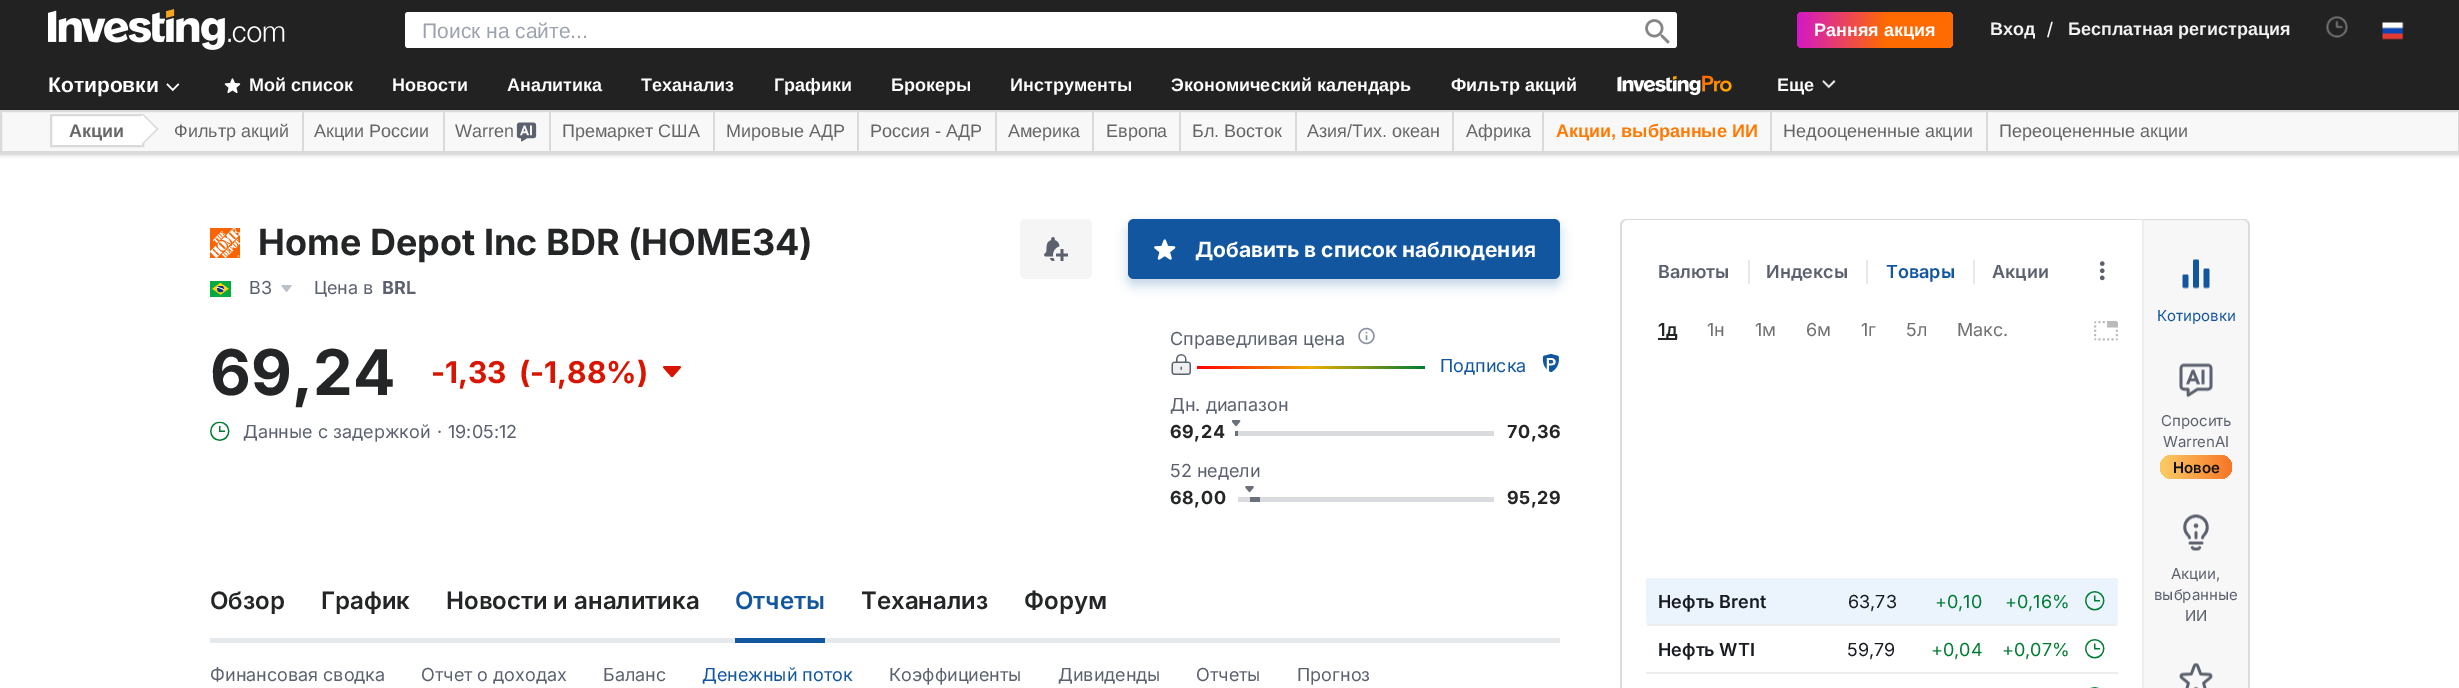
%!PS-Adobe-3.0
%%BoundingBox: 0 0 2459 688
%%LanguageLevel: 3
%%Pages: 1
%%EndComments
%%BeginProlog
/m { moveto } bind def
/l { lineto } bind def
/c { curveto } bind def
/h { closepath } bind def
/f { fill } bind def
/S { stroke } bind def
/q { gsave } bind def
/Q { grestore } bind def
/w { setlinewidth } bind def
/fn { [ exch dup neg 0 0 3 -1 roll 0 0 ] selectfont } def
/tx { moveto show } def
/bx { rectfill } def
/al { dup .setfillconstantalpha .setstrokeconstantalpha } def
/rr { 5 dict begin { /r /h /w /y /x } { exch def } forall
  x r add y moveto x w add y 2 copy h add r arct x w add y h add x 1 index r arct
  x y h add x y r arct x y 2 copy exch w add exch r arct closepath end } def
/sh { 12 dict begin { /a /b /q /h /w /y /x } { exch def } forall gsave /was 0 def
  9 -2 -9 { dup b mul 4 div /e exch def 1 sub .425 mul 2.718 exch exp 1 add a .99 .min exch div /now exch def
    1 1 now sub 1 was sub div sub al /was now def
    w h .min e 2 mul add 0 gt { x e sub y e sub w e 2 mul add h e 2 mul add
      q e add b .6 mul add w h .min 2 div e add .min 0 .max rr fill } if } for grestore end } def
/im { 5 dict begin { /h /w /y /x /name } { exch def } forall
  gsave x y translate w h scale
  w h 8 [w 0 0 h 0 0] name (r) file false 3 colorimage grestore end } def
%%EndProlog
%%BeginSetup
<< /PageSize [2459 688] /PageUsesTransparency true >> setpagedevice
%%EndSetup
%%Page: 1 1
0 .pushpdf14devicefilter
0 688 translate 1 -1 scale
4 setmiterlimit
1 setgray
0 0 2459 688 bx
0.133 setgray
0 0 2459 110 bx
(image0.raw) 48 9 237 41 im
1 setgray
405 12 1272 36 3 rr f
/LiberationSans-Regular 21 fn
0.612 0.639 0.686 setrgbcolor
(Поиск на сайте...) 422 38 tx
(image1.raw) 1645 19 25 25 im
q 1797 12 156 36 6 rr clip newpath
<< /ShadingType 2 /ColorSpace /DeviceRGB /Coords [1954 36 1772 23] /Extend [true true] /Function << /FunctionType 3 /Domain [0 1] /Functions [<< /FunctionType 2 /Domain [0 1] /C0 [1 0.42 0] /C1 [1 0.42 0] /N 1 >> << /FunctionType 2 /Domain [0 1] /C0 [1 0.42 0] /C1 [0.784 0 1] /N 1 >>] /Bounds [0.37] /Encode [0 1 0 1] >> >> shfill Q
/LiberationSans-Bold 18 fn
1 setgray
(Ранняя акция) 1814 36 tx
0.949 setgray
(Вход) 1990 35 tx
/LiberationSans-Regular 21 fn
1 setgray
(/) 2047 37 tx
/LiberationSans-Bold 18 fn
0.949 setgray
(Бесплатная регистрация) 2068 35 tx
(image2.raw) 2326 16 22 22 im
(image3.raw) 2382 22 22 18 im
/LiberationSans-Bold 21 fn
1 setgray
(Котировки) 48 92 tx
(image4.raw) 166 83 14 9 im
(image5.raw) 224 78 17 15 im
/LiberationSans-Bold 18 fn
(Мой список) 249 91 tx
(Новости) 392 91 tx
(Аналитика) 507 91 tx
(Теханализ) 641 91 tx
(Графики) 774 91 tx
(Брокеры) 891 91 tx
(Инструменты) 1010 91 tx
(Экономический календарь) 1171 91 tx
(Фильтр акций) 1451 91 tx
(image6.raw) 1617 75 115 21 im
(Еще) 1777 91 tx
(image7.raw) 1822 79 14 10 im
0 setgray
0 111 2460 44 0 2 0.2 sh
0.973 setgray
1 111 m 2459 111 l 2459 152 l 1 152 l h q f Q
0.855 setgray
2 w
S
1 setgray
51 115 m 143 115 l 143 146 l 51 146 l h q f Q
0.855 setgray
S
0.4 setgray
(Акции) 69 137 tx
1 setgray
143.5 114 m 158.5 129 l 143.5 144 l 129 129 l h f
0.855 setgray
143.5 114 m 158.5 129 l 157.5 130 l 142.5 115 l h f
157.5 128 m 158.5 129 l 143.5 144 l 142.5 143 l h f
302 111 2 41 bx
/LiberationSans-Regular 18 fn
0.4 setgray
(Фильтр акций) 174 137 tx
0.855 setgray
443 111 2 41 bx
0.4 setgray
(Акции России) 314 137 tx
0.855 setgray
549 111 2 41 bx
0.4 setgray
(Warren) 455 137 tx
(image8.raw) 516 122 21 20 im
0.855 setgray
713 111 2 41 bx
0.4 setgray
(Премаркет США) 562 137 tx
0.855 setgray
857 111 2 41 bx
0.4 setgray
(Мировые АДР) 726 137 tx
0.855 setgray
995 111 2 41 bx
0.4 setgray
(Россия - АДР) 870 137 tx
0.855 setgray
1092 111 2 41 bx
0.4 setgray
(Америка) 1008 137 tx
0.855 setgray
1179 111 2 41 bx
0.4 setgray
(Европа) 1106 137 tx
0.855 setgray
1295 111 2 41 bx
0.4 setgray
(Бл. Восток) 1192 137 tx
0.855 setgray
1452 111 2 41 bx
0.4 setgray
(Азия/Тих. океан) 1307 137 tx
0.855 setgray
1542 111 2 41 bx
0.4 setgray
(Африка) 1466 137 tx
0.855 setgray
1770 111 2 41 bx
/LiberationSans-Bold 18 fn
1 0.475 0.004 setrgbcolor
(Акции, выбранные ИИ) 1556 137 tx
0.855 setgray
1986 111 2 41 bx
/LiberationSans-Regular 18 fn
0.4 setgray
(Недооцененные акции) 1783 137 tx
(Переоцененные акции) 1999 137 tx
(image9.raw) 210 228 30 30 im
/Inter-Bold 36 fn
0.137 0.145 0.149 setrgbcolor
(Home Depot Inc BDR \(HOME34\)) 258 255 tx
(image10.raw) 210 281 21 16 im
/Inter-Regular 18 fn
0.357 0.38 0.431 setrgbcolor
(B3) 249 294 tx
(image11.raw) 281 285 11 7 im
(Цена в) 314 294 tx
/Inter-Bold 18 fn
(BRL) 382 294 tx
0.961 setgray
1020 219 72 60 6 rr f
(image12.raw) 1044 237 24 24 im
0.071 0.337 0.627 setrgbcolor
1128 225 432 60 6 6 0.25 sh
1128 219 432 60 6 rr f
(image13.raw) 1154 239 22 21 im
/Inter-Bold 21 fn
1 setgray
(Добавить в список наблюдения) 1195 257 tx
/Inter-Bold 63 fn
0.137 0.145 0.149 setrgbcolor
(69,24) 210 395 tx
/Inter-Bold 30 fn
0.851 0.078 0 setrgbcolor
(-1,33) 431 383 tx
(\(-1,88%\)) 519 383 tx
(image14.raw) 663 366 18 12 im
(image15.raw) 210 421 20 20 im
/Inter-Regular 18 fn
0.357 0.38 0.431 setrgbcolor
(Данные с задержкой) 243 438 tx
(·) 437 438 tx
(19:05:12) 448 438 tx
(Справедливая цена) 1170 345 tx
(image16.raw) 1358 327 17 18 im
(image17.raw) 1171 354 20 21 im
q 1197 366 m 1425 366 l 1425 369 l 1197 369 l h clip newpath
<< /ShadingType 2 /ColorSpace /DeviceRGB /Coords [1197 368 1425 368] /Extend [true true] /Function << /FunctionType 3 /Domain [0 1] /Functions [<< /FunctionType 2 /Domain [0 1] /C0 [1 0 0] /C1 [0.922 0.682 0.016] /N 1 >> << /FunctionType 2 /Domain [0 1] /C0 [0.922 0.682 0.016] /C1 [0 0.486 0.196] /N 1 >>] /Bounds [0.5] /Encode [0 1 0 1] >> >> shfill Q
0.071 0.337 0.627 setrgbcolor
(Подписка) 1440 372 tx
(image18.raw) 1542 354 17 18 im
0.357 0.38 0.431 setrgbcolor
(Дн. диапазон) 1170 411 tx
/Inter-Bold 18 fn
0.137 0.145 0.149 setrgbcolor
1170 438 m 0.5 0 (69,24) ashow
0.855 0.859 0.871 setrgbcolor
1236 431 258 5 bx
(image19.raw) 1232 420 9 7 im
0.416 0.439 0.486 setrgbcolor
1235 431 3 5 bx
0.137 0.145 0.149 setrgbcolor
1507 438 m 0.5 0 (70,36) ashow
/Inter-Regular 18 fn
0.357 0.38 0.431 setrgbcolor
(52 недели) 1170 477 tx
/Inter-Bold 18 fn
0.137 0.145 0.149 setrgbcolor
1170 504 m 0.5 0 (68,00) ashow
0.855 0.859 0.871 setrgbcolor
1238 497 256 5 bx
(image20.raw) 1245 486 9 7 im
0.416 0.439 0.486 setrgbcolor
1250 497 10 5 bx
0.137 0.145 0.149 setrgbcolor
1507 504 m 0.5 0 (95,29) ashow
0.902 0.914 0.922 setrgbcolor
210 638 1350 5 bx
/Inter-SemiBold 24 fn
0.137 0.145 0.149 setrgbcolor
(Обзор) 210 609 tx
(График) 321 609 tx
(Новости и аналитика) 446 609 tx
0.071 0.337 0.627 setrgbcolor
735 638 90 5 bx
(Отчеты) 735 609 tx
0.137 0.145 0.149 setrgbcolor
(Теханализ) 861 609 tx
(Форум) 1024 609 tx
/Inter-Regular 18 fn
0.357 0.38 0.431 setrgbcolor
(Финансовая сводка) 210 681 tx
(Отчет о доходах) 421 681 tx
(Баланс) 603 681 tx
0.071 0.337 0.627 setrgbcolor
(Денежный поток) 702 681 tx
0.357 0.38 0.431 setrgbcolor
(Коэффициенты) 889 681 tx
(Дивиденды) 1058 681 tx
(Отчеты) 1196 681 tx
(Прогноз) 1297 681 tx
0.851 0.863 0.875 setrgbcolor
1626 219 m 2142 219 l 2142 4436 l 1626 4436 l 1623 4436 1620 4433 1620 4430 c 1620 225 l 1620 222 1623 219 1626 219 c h 1626 220 m 2142 220 l 2142 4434 l 1626 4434 l 1624 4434 1622 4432 1622 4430 c 1622 225 l 1622 223 1624 220 1626 220 c h eofill
/Inter-SemiBold 18 fn
0.357 0.38 0.431 setrgbcolor
(Валюты) 1658 278 tx
0.902 0.914 0.922 setrgbcolor
1748 260 2 24 bx
0.357 0.38 0.431 setrgbcolor
(Индексы) 1766 278 tx
0.902 0.914 0.922 setrgbcolor
1866 260 2 24 bx
0.071 0.337 0.627 setrgbcolor
(Товары) 1886 278 tx
0.902 0.914 0.922 setrgbcolor
1973 260 2 24 bx
0.357 0.38 0.431 setrgbcolor
(Акции) 1992 278 tx
(image21.raw) 2099 261 6 20 im
0.137 0.145 0.149 setrgbcolor
1658 338 19 2 bx
(1д) 1658 336 tx
/Inter-Regular 18 fn
0.439 setgray
(1н) 1707 336 tx
(1м) 1755 336 tx
(6м) 1806 336 tx
(1г) 1861 336 tx
(5л) 1906 336 tx
(Макс.) 1957 336 tx
(image22.raw) 2094 321 24 20 im
0.922 0.953 0.992 setrgbcolor
1648 578 m 2115 578 l 2117 578 2118 579 2118 580 c 2118 622 l 2118 623 2117 624 2115 624 c 1648 624 l 1647 624 1646 623 1646 622 c 1646 580 l 1646 579 1647 578 1648 578 c h f
0.925 0.929 0.937 setrgbcolor
1647 624 470 2 bx
/Inter-SemiBold 18 fn
0.094 0.11 0.129 setrgbcolor
(Нефть Brent) 1658 608 tx
/Inter-Regular 18 fn
(63,73) 1848 608 tx
0 0.486 0.196 setrgbcolor
(+0,10) 1935 608 tx
(+0,16%) 2005 608 tx
(image23.raw) 2085 591 20 20 im
0.925 0.929 0.937 setrgbcolor
1646 672 472 2 bx
/Inter-SemiBold 18 fn
0.094 0.11 0.129 setrgbcolor
(Нефть WTI) 1658 656 tx
/Inter-Regular 18 fn
(59,79) 1847 656 tx
0 0.486 0.196 setrgbcolor
(+0,04) 1931 656 tx
(+0,07%) 2002 656 tx
(image24.raw) 2085 639 20 20 im
(image25.raw) 2090 687 9 1 im
0.969 0.969 0.973 setrgbcolor
2142 219 m 2244 219 l 2247.5 219 2250 221.5 2250 225 c 2250 688 l 2250 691.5 2247.5 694 2244 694 c 2142 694 l h f
0.851 0.863 0.875 setrgbcolor
2142 219 m 2144 221 l 2144 220 l 2244 220 l 2247 222 l 2248 221 l 2247 220 2246 219 2244 219 c h f
2250 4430 m 2250 225 l 2250 224 2249 222 2248 221 c 2247 222 l 2248 225 l 2248 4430 l 2247 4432 l 2248 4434 l 2249 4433 2250 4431 2250 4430 c h f
0.925 0.929 0.937 setrgbcolor
2142 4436 m 2144 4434 l 2144 221 l 2142 219 l h f
(image26.raw) 2182 259 28 30 im
/Inter-Regular 15 fn
0.071 0.337 0.627 setrgbcolor
(Котировки) 2157 321 tx
(image27.raw) 2179 363 34 35 im
0.357 0.38 0.431 setrgbcolor
(Спросить) 2161 426 tx
(WarrenAI) 2163 447 tx
q 2160 455 72 24 12 rr clip newpath
<< /ShadingType 2 /ColorSpace /DeviceRGB /Coords [2159 469 2243 463] /Extend [true true] /Function << /FunctionType 3 /Domain [0 1] /Functions [<< /FunctionType 2 /Domain [0 1] /C0 [0.98 0.78 0.38] /C1 [0.98 0.78 0.38] /N 1 >> << /FunctionType 2 /Domain [0 1] /C0 [0.98 0.78 0.38] /C1 [0.969 0.408 0.11] /N 1 >>] /Bounds [0.07] /Encode [0 1 0 1] >> >> shfill Q
/Inter-SemiBold 15 fn
0.067 setgray
(Новое) 2173 473 tx
(image28.raw) 2183 514 26 37 im
/Inter-Regular 15 fn
0.357 0.38 0.431 setrgbcolor
(Акции,) 2171 579 tx
(выбранные) 2154 600 tx
(ИИ) 2185 621 tx
(image29.raw) 2179 662 34 26 im
.poppdf14devicefilter showpage
%%EOF
